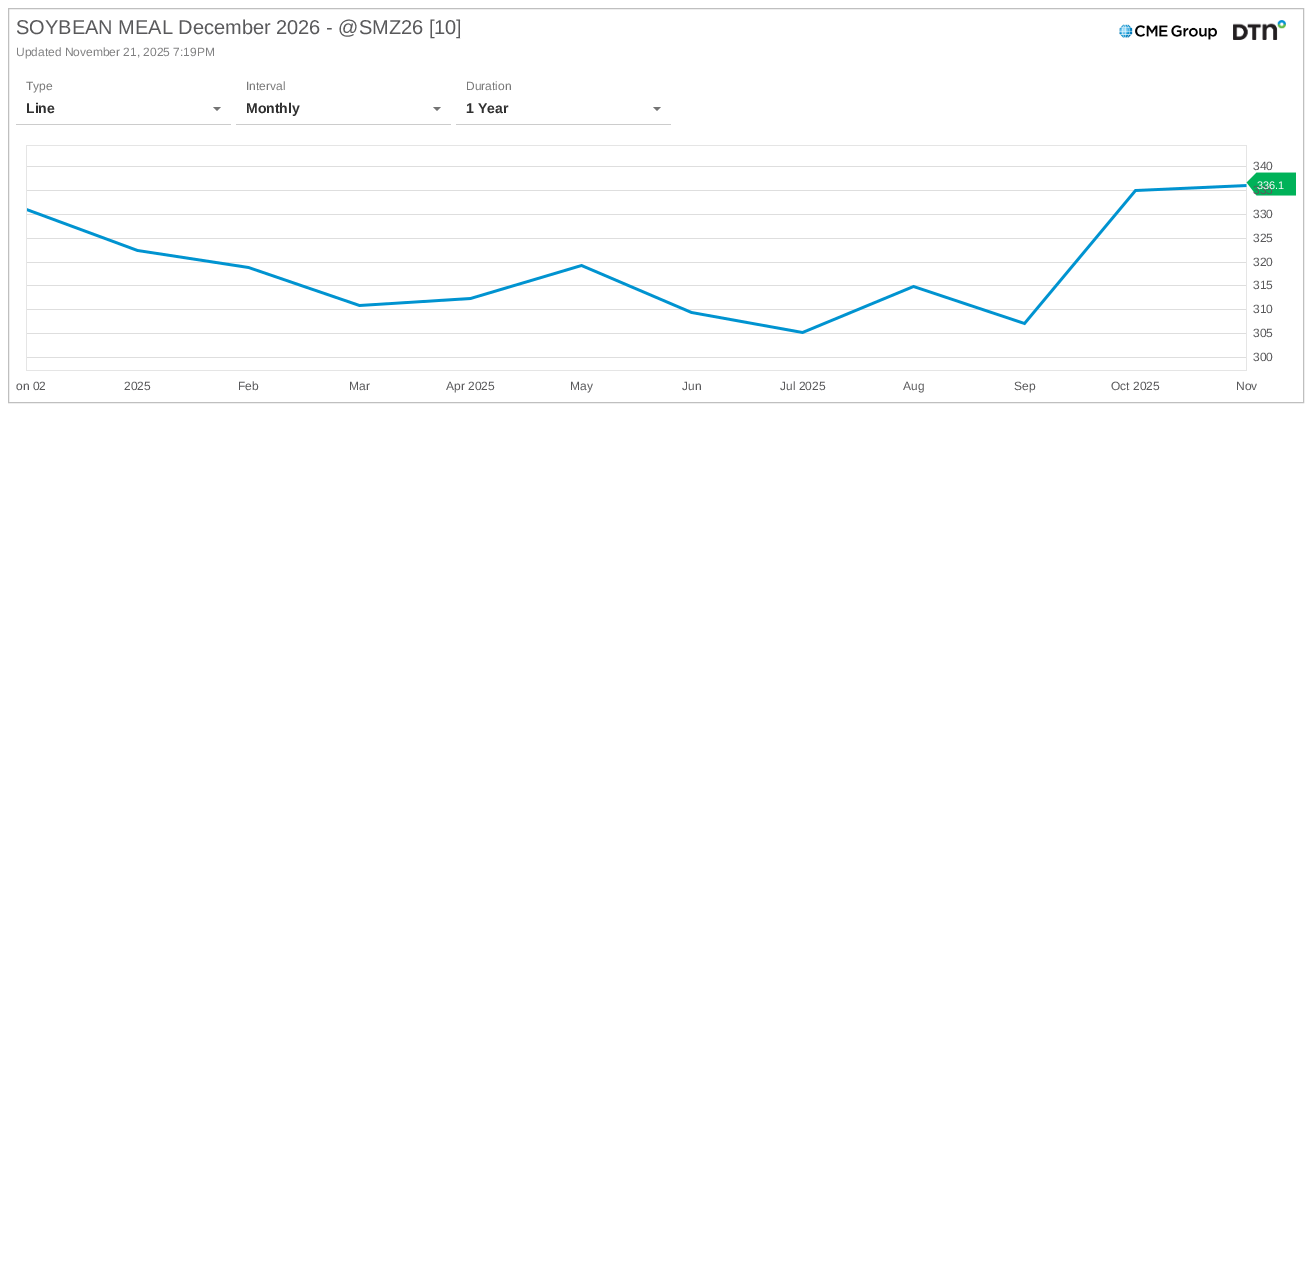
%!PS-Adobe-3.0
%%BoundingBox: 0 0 1312 1279
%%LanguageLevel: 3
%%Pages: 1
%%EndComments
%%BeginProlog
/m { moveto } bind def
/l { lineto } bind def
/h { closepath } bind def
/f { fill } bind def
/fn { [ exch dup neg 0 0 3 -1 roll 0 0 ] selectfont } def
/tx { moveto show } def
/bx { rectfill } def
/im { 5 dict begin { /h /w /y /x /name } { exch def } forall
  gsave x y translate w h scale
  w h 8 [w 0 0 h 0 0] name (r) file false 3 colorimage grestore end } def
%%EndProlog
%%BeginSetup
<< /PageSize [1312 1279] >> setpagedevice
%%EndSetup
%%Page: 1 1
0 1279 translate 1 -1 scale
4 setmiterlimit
1 setgray
0 0 1312 1279 bx
0.749 setgray
8.5 8.5 1295 394 rectstroke
/LiberationSans-Regular 20 fn
0.349 0.349 0.357 setrgbcolor
(SOYBEAN MEAL December 2026 - @SMZ26 [10]) 16 34 tx
(image0.raw) 1119 24 98 16 im
(image1.raw) 1233 20 53 20 im
/LiberationSans-Regular 12 fn
0.506 0.506 0.51 setrgbcolor
(Updated November 21, 2025 7:19PM) 16 56 tx
0.475 setgray
(Type) 26 90 tx
0.8 setgray
16 124 215 1 bx
/LiberationSans-Bold 14 fn
0.188 setgray
(Line) 26 113 tx
0.455 setgray
213 107 m 221 107 l 217 111 l h f
/LiberationSans-Regular 12 fn
0.475 setgray
(Interval) 246 90 tx
0.8 setgray
236 124 215 1 bx
/LiberationSans-Bold 14 fn
0.188 setgray
(Monthly) 246 113 tx
0.455 setgray
433 107 m 441 107 l 437 111 l h f
/LiberationSans-Regular 12 fn
0.475 setgray
(Duration) 466 90 tx
0.8 setgray
456 124 215 1 bx
/LiberationSans-Bold 14 fn
0.188 setgray
(1 Year) 466 113 tx
0.455 setgray
653 107 m 661 107 l 657 111 l h f
(image2.raw) 26 145 1270 226 im
/LiberationSans-Regular 12 fn
0.349 0.349 0.357 setrgbcolor
(340) 1253 170 tx
(335) 1253 194 tx
/LiberationSans-Regular 11 fn
1 setgray
(336.1) 1257 189 tx
/LiberationSans-Regular 12 fn
0.349 0.349 0.357 setrgbcolor
(330) 1253 218 tx
(325) 1253 242 tx
(320) 1253 266 tx
(315) 1253 289 tx
(310) 1253 313 tx
(305) 1253 337 tx
(300) 1253 361 tx
(on 02) 16 390 tx
(2025) 124 390 tx
(Feb) 238 390 tx
(Mar) 349 390 tx
(Apr 2025) 446 390 tx
(May) 570 390 tx
(Jun) 682 390 tx
(Jul 2025) 780 390 tx
(Aug) 903 390 tx
(Sep) 1014 390 tx
(Oct 2025) 1111 390 tx
(Nov) 1236 390 tx
showpage
%%EOF
